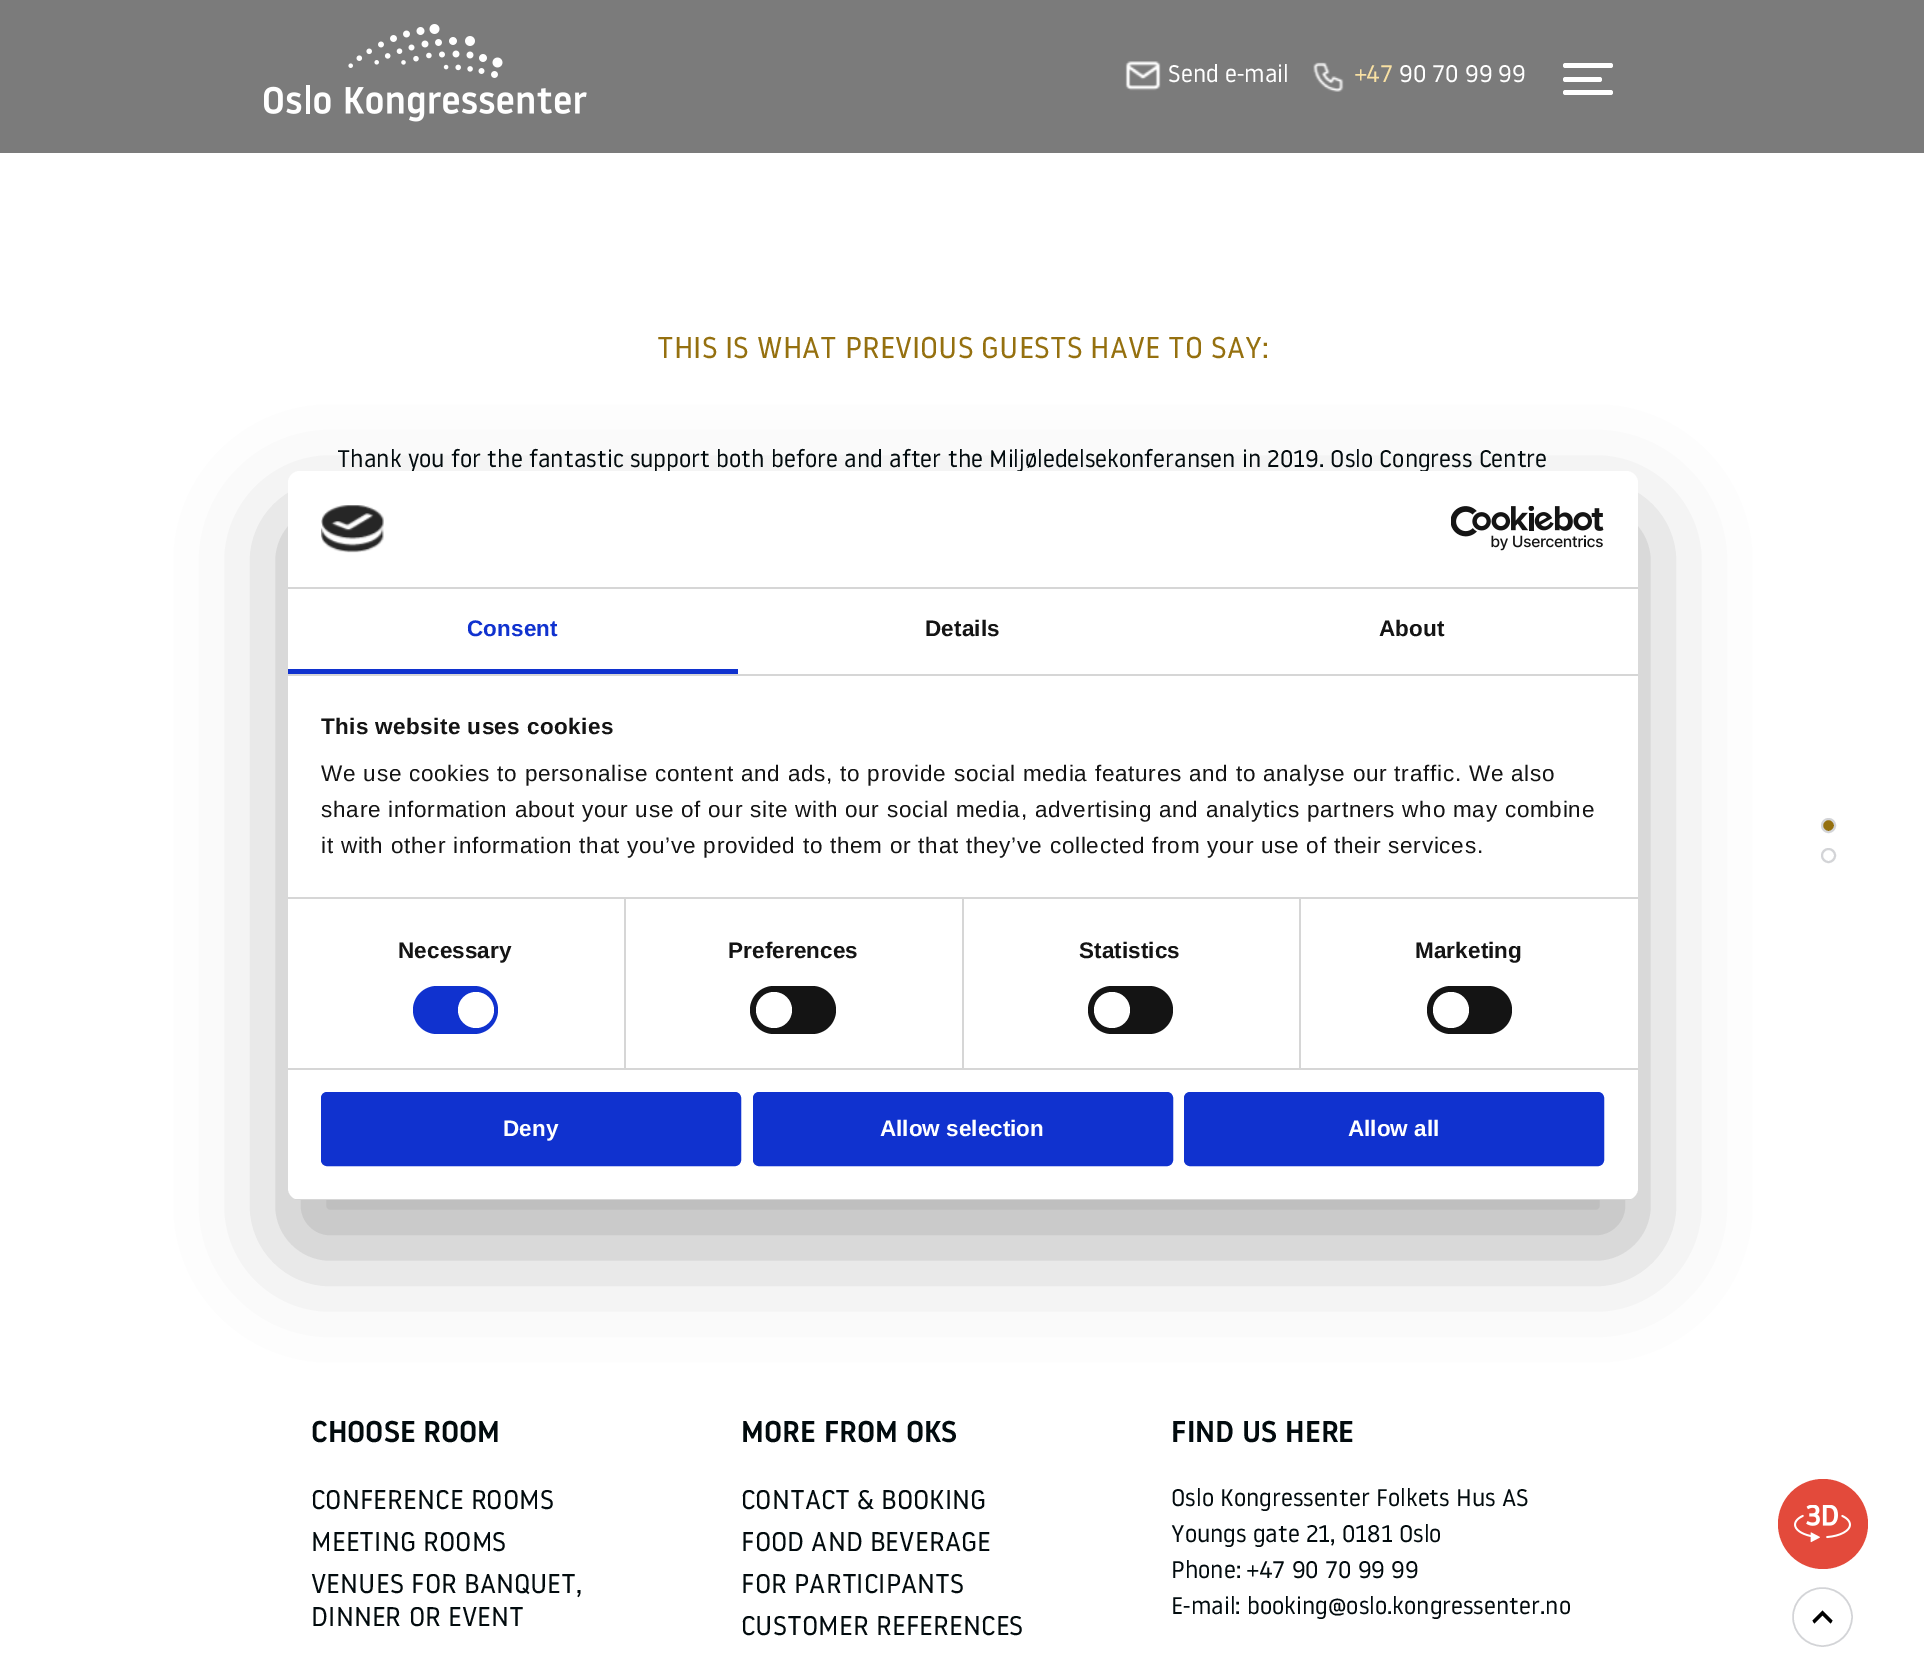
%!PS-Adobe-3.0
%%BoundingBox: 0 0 1924 1670
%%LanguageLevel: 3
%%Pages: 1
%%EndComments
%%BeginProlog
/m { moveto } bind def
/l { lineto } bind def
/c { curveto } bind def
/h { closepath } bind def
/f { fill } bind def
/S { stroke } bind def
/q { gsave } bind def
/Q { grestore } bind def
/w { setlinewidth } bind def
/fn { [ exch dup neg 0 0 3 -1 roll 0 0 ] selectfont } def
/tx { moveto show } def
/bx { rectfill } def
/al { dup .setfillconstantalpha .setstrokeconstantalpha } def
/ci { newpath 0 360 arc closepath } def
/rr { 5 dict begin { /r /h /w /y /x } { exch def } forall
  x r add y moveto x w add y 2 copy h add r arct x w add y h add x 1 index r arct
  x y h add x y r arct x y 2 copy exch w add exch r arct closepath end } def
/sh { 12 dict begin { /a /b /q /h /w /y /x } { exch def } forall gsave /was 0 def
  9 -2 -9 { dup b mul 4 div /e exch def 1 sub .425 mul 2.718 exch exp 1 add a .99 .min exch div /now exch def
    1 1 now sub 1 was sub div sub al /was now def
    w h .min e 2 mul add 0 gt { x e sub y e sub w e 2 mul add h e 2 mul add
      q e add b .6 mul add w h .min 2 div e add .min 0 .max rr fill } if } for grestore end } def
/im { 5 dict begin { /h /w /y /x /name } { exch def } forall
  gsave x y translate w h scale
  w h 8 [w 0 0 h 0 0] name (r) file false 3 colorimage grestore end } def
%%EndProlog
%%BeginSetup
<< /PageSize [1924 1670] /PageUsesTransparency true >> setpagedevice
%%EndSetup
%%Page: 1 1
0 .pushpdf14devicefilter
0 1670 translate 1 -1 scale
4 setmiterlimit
1 setgray
0 0 1924 1670 bx
0.482 setgray
0 0 1924 153 bx
(image0.raw) 264 24 323 98 im
(image1.raw) 1125 61 36 30 im
/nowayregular-Regular 24 fn
1 setgray
(Send e-mail) 1168 82 tx
(image2.raw) 1313 62 31 30 im
0.976 0.882 0.639 setrgbcolor
(+47) 1355 82 tx
1 setgray
(90 70 99 99) 1399 82 tx
1563 63 50 5 2.5 rr f
1563 77 39 5 2.5 rr f
1563 90 50 5 2.5 rr f
/nowayregular-Regular 30 fn
0.584 0.439 0.059 setrgbcolor
(THIS IS WHAT PREVIOUS GUESTS HAVE TO SAY:) 657 358 tx
/nowayregular-Regular 24 fn
0.008 0.043 0.055 setrgbcolor
(Thank you for the fantastic support both before and after the Miljøledelsekonferansen in 2019. Oslo Congress Centre) 337 467 tx
/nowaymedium-Medium 30 fn
(CHOOSE ROOM) 311 1442 tx
/nowayregular-Regular 27 fn
(CONFERENCE ROOMS) 311 1509 tx
(MEETING ROOMS) 311 1551 tx
(VENUES FOR BANQUET,) 311 1593 tx
(DINNER OR EVENT) 311 1626 tx
/nowaymedium-Medium 30 fn
(MORE FROM OKS) 741 1442 tx
/nowayregular-Regular 27 fn
(CONTACT & BOOKING) 741 1509 tx
(FOOD AND BEVERAGE) 741 1551 tx
(FOR PARTICIPANTS) 741 1593 tx
(CUSTOMER REFERENCES) 741 1635 tx
/nowaymedium-Medium 30 fn
(FIND US HERE) 1171 1442 tx
/nowayregular-Regular 24 fn
(Oslo Kongressenter Folkets Hus AS) 1171 1506 tx
(Youngs gate 21, 0181 Oslo) 1171 1542 tx
(Phone: +47 90 70 99 99) 1171 1578 tx
(E-mail: booking@oslo.kongressenter.no) 1171 1614 tx
0 setgray
288 519 1350 729 12 51 0.3 sh
1 setgray
288 471 1350 729 12 rr f
0.839 setgray
288 587 1350 2 bx
(image3.raw) 321 505 63 48 im
(image4.raw) 1451 506 153 45 im
288 674 1350 2 bx
0.063 0.196 0.812 setrgbcolor
288 669 450 5 bx
/LiberationSans-Bold 22.5 fn
467 636 m 0.1 0 (Consent) ashow
0.078 setgray
925 636 m 0.1 0 (Details) ashow
1379 636 m 0.1 0 (About) ashow
0.839 setgray
288 897 1350 2 bx
0.078 setgray
321 734 m 0.4 0 (This website uses cookies) ashow
/LiberationSans-Regular 22.5 fn
321 781 m 0.75 0 (We use cookies to personalise content and ads, to provide social media features and to analyse our traffic. We also) ashow
321 817 m 0.75 0 (share information about your use of our site with our social media, advertising and analytics partners who may combine) ashow
321 853 m 0.75 0 (it with other information that you’ve provided to them or that they’ve collected from your use of their services.) ashow
0.839 setgray
288 1068 1350 2 bx
624 899 2 169 bx
/LiberationSans-Bold 22.5 fn
0.078 setgray
398 958 m 0.1 0 (Necessary) ashow
0.063 0.196 0.812 setrgbcolor
413 986 85 48 24 rr f
1 setgray
476 1010 18 ci f
0.839 setgray
962 899 2 169 bx
0.078 setgray
728 958 m 0.1 0 (Preferences) ashow
750 986 86 48 24 rr f
1 setgray
774 1010 18 ci f
0.839 setgray
1299 899 2 169 bx
0.078 setgray
1079 958 m 0.1 0 (Statistics) ashow
1088 986 85 48 24 rr f
1 setgray
1112 1010 18 ci f
0.078 setgray
1415 958 m 0.1 0 (Marketing) ashow
1427 986 85 48 24 rr f
1 setgray
1451 1010 18 ci f
q
288 471 1350 729 12 rr clip newpath
0.839 setgray
288 1199 1350 1 bx
Q
0.063 0.196 0.812 setrgbcolor
322.5 1093.5 417 71 4.5 rr q f Q
3 w
S
1 setgray
(Deny) 503 1136 tx
0.063 0.196 0.812 setrgbcolor
754.5 1093.5 417 71 4.5 rr q f Q
S
1 setgray
(Allow selection) 880 1136 tx
0.063 0.196 0.812 setrgbcolor
1185.5 1093.5 417 71 4.5 rr q f Q
S
1 setgray
(Allow all) 1348 1136 tx
0.584 0.439 0.059 setrgbcolor
1828.5 825.5 6.5 ci q f Q
0.827 0.831 0.843 setrgbcolor
2 w
S
1828.5 855.5 6.5 ci S
0.89 0.29 0.231 setrgbcolor
1823 1524 45 ci f
(image5.raw) 1794 1505 57 38 im
0.827 0.831 0.843 setrgbcolor
1.5 w
1793 1617 m 1793 1601 1806.5 1588 1822.5 1588 c 1838.5 1588 1852 1601 1852 1617 c 1852 1633 1838.5 1646 1822.5 1646 c 1806.5 1646 1793 1633 1793 1617 c h S
0 setgray
1814.5 1623.5 m 1822.5 1615.5 l 1830.5 1623.5 l 1831.5 1622.5 1832 1621.5 1832.5 1620.5 c 1822.5 1610.5 l 1812.5 1620.5 l 1813.5 1622.5 l h f
.poppdf14devicefilter showpage
%%EOF
